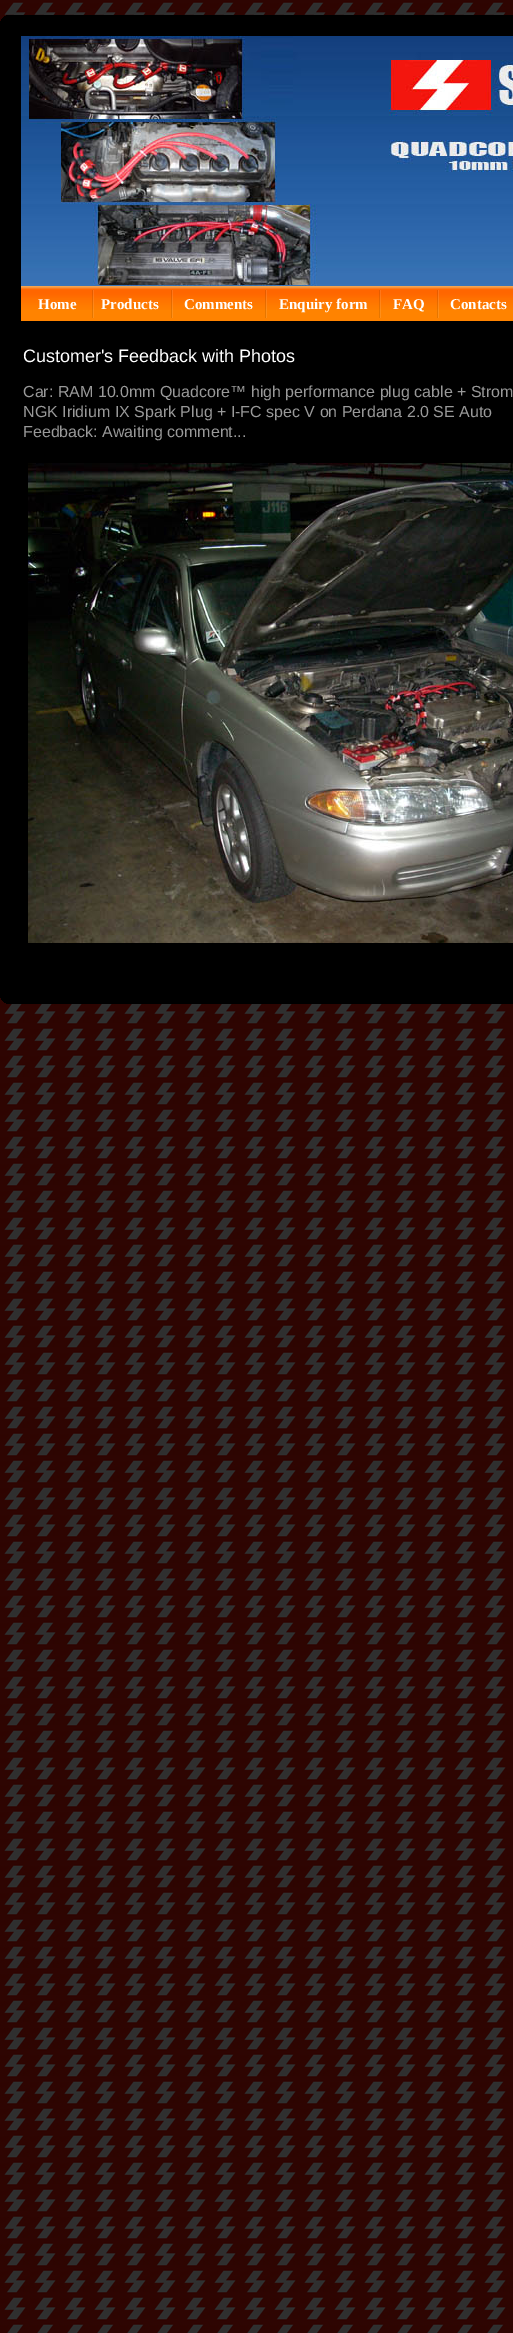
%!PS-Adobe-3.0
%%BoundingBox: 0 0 513 2333
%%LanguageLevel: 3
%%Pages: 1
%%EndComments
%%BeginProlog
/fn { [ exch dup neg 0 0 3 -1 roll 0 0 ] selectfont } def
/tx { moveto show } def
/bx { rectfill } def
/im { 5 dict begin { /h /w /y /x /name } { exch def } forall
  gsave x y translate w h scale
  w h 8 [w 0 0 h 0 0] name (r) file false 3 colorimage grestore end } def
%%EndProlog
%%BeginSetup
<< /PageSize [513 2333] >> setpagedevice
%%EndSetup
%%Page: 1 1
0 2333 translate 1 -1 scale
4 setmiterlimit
1 setgray
0 0 513 2333 bx
(image0.raw) 0 0 513 2333 im
(image1.raw) 0 15 20 20 im
0 setgray
20 15 493 20 bx
0 35 513 949 bx
(image2.raw) 21 36 492 250 im
(image3.raw) 21 286 492 35 im
/LiberationSerif-Bold 15 fn
1 setgray
(Home) 38 309 tx
(image4.raw) 92 290 2 28 im
(Products) 101 309 tx
(image4.raw) 171 290 2 28 im
(Comments) 184 309 tx
(image4.raw) 265 290 2 28 im
(Enquiry form) 279 309 tx
(image4.raw) 379 290 2 28 im
(FAQ) 393 309 tx
(image4.raw) 437 290 2 28 im
(Contacts) 450 309 tx
/LiberationSans-Regular 18 fn
(Customer's Feedback with Photos) 23 362 tx
/LiberationSans-Regular 16 fn
0.6 setgray
(Car: RAM 10.0mm Quadcore™ high performance plug cable + Strom) 23 397 tx
(NGK Iridium IX Spark Plug + I-FC spec V on Perdana 2.0 SE Auto) 23 417 tx
(Feedback: Awaiting comment...) 23 437 tx
(image5.raw) 28 463 485 480 im
(image6.raw) 0 984 20 20 im
0 setgray
20 984 493 20 bx
showpage
%%EOF
